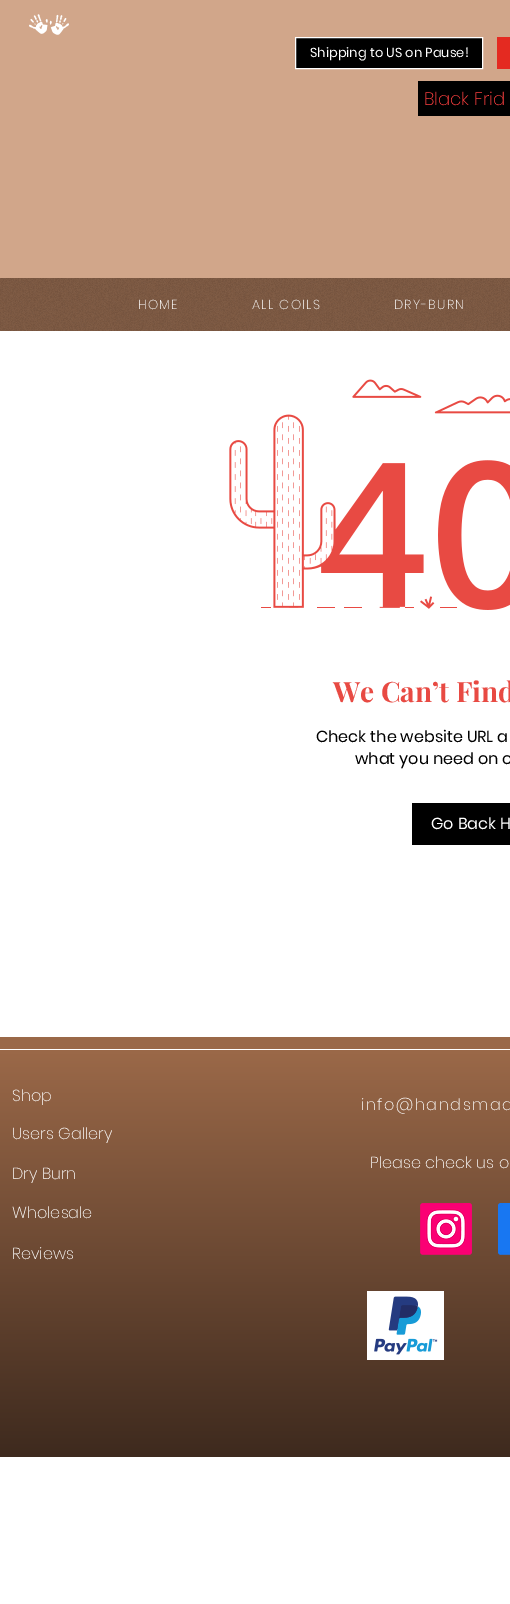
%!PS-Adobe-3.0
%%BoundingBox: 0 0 510 1604
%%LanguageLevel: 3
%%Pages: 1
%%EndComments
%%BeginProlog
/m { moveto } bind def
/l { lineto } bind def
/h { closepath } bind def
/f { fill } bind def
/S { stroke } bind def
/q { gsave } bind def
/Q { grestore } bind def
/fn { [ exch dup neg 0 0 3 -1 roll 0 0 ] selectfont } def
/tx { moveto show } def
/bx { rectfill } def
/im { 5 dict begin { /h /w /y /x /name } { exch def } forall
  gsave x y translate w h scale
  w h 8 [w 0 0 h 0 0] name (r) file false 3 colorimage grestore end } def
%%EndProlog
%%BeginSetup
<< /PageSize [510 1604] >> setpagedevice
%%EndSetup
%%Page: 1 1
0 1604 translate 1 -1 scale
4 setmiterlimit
1 setgray
0 0 510 1604 bx
0.82 0.651 0.541 setrgbcolor
0 0 510 278 bx
(image0.raw) 29 14 40 21 im
0 setgray
295.5 37.5 m 482.5 37.5 l 482.5 68.5 l 295.5 68.5 l h q f Q
1 setgray
S
/Poppins-Regular 13 fn
(Shipping to US on Pause!) 310 57 tx
0.894 0.165 0.129 setrgbcolor
497 37 13 32 bx
0 setgray
418 81 92 35 bx
/Poppins-ExtraLight 18 fn
1 0.251 0.251 setrgbcolor
(Black Frid) 424 105 tx
0.49 0.349 0.259 setrgbcolor
0 278 510 53 bx
(image1.raw) 0 278 510 53 im
/Poppins-ExtraLight 13 fn
1 setgray
138 309 m 1.25 0 (HOME) ashow
252 309 m 1.25 0 (ALL COILS) ashow
394 309 m 1.25 0 (DRY-BURN) ashow
(image2.raw) 229 379 281 231 im
/PlayfairDisplay-Bold 28 fn
0.91 0.29 0.263 setrgbcolor
(We Can’t Find) 333 702 tx
/Poppins-Regular 16 fn
0 setgray
(Check the website URL a) 316 742 tx
(what you need on o) 355 764 tx
412 803 98 42 bx
1 setgray
(Go Back H) 431 829 tx
0.604 0.408 0.282 setrgbcolor
0 1037 510 17 bx
1 setgray
0 1049 510 1 bx
q 0 1054 m 510 1054 l 510 1457 l 0 1457 l h clip newpath
<< /ShadingType 2 /ColorSpace /DeviceRGB /Coords [490 1054 490 1457] /Extend [true true] /Function << /FunctionType 2 /Domain [0 1] /C0 [0.604 0.408 0.282] /C1 [0.243 0.165 0.118] /N 1 >> >> shfill Q
/Poppins-ExtraLight 16 fn
(Shop) 12 1101 tx
(Users Gallery) 12 1139 tx
(Dry Burn) 12 1179 tx
(Wholesale) 12 1218 tx
(Reviews) 12 1259 tx
361 1110 m 1.6 0 (info@handsmad) ashow
(Please check us o) 370 1168 tx
(image3.raw) 420 1203 52 52 im
(image4.raw) 498 1203 12 52 im
(image5.raw) 367 1291 77 69 im
showpage
%%EOF
